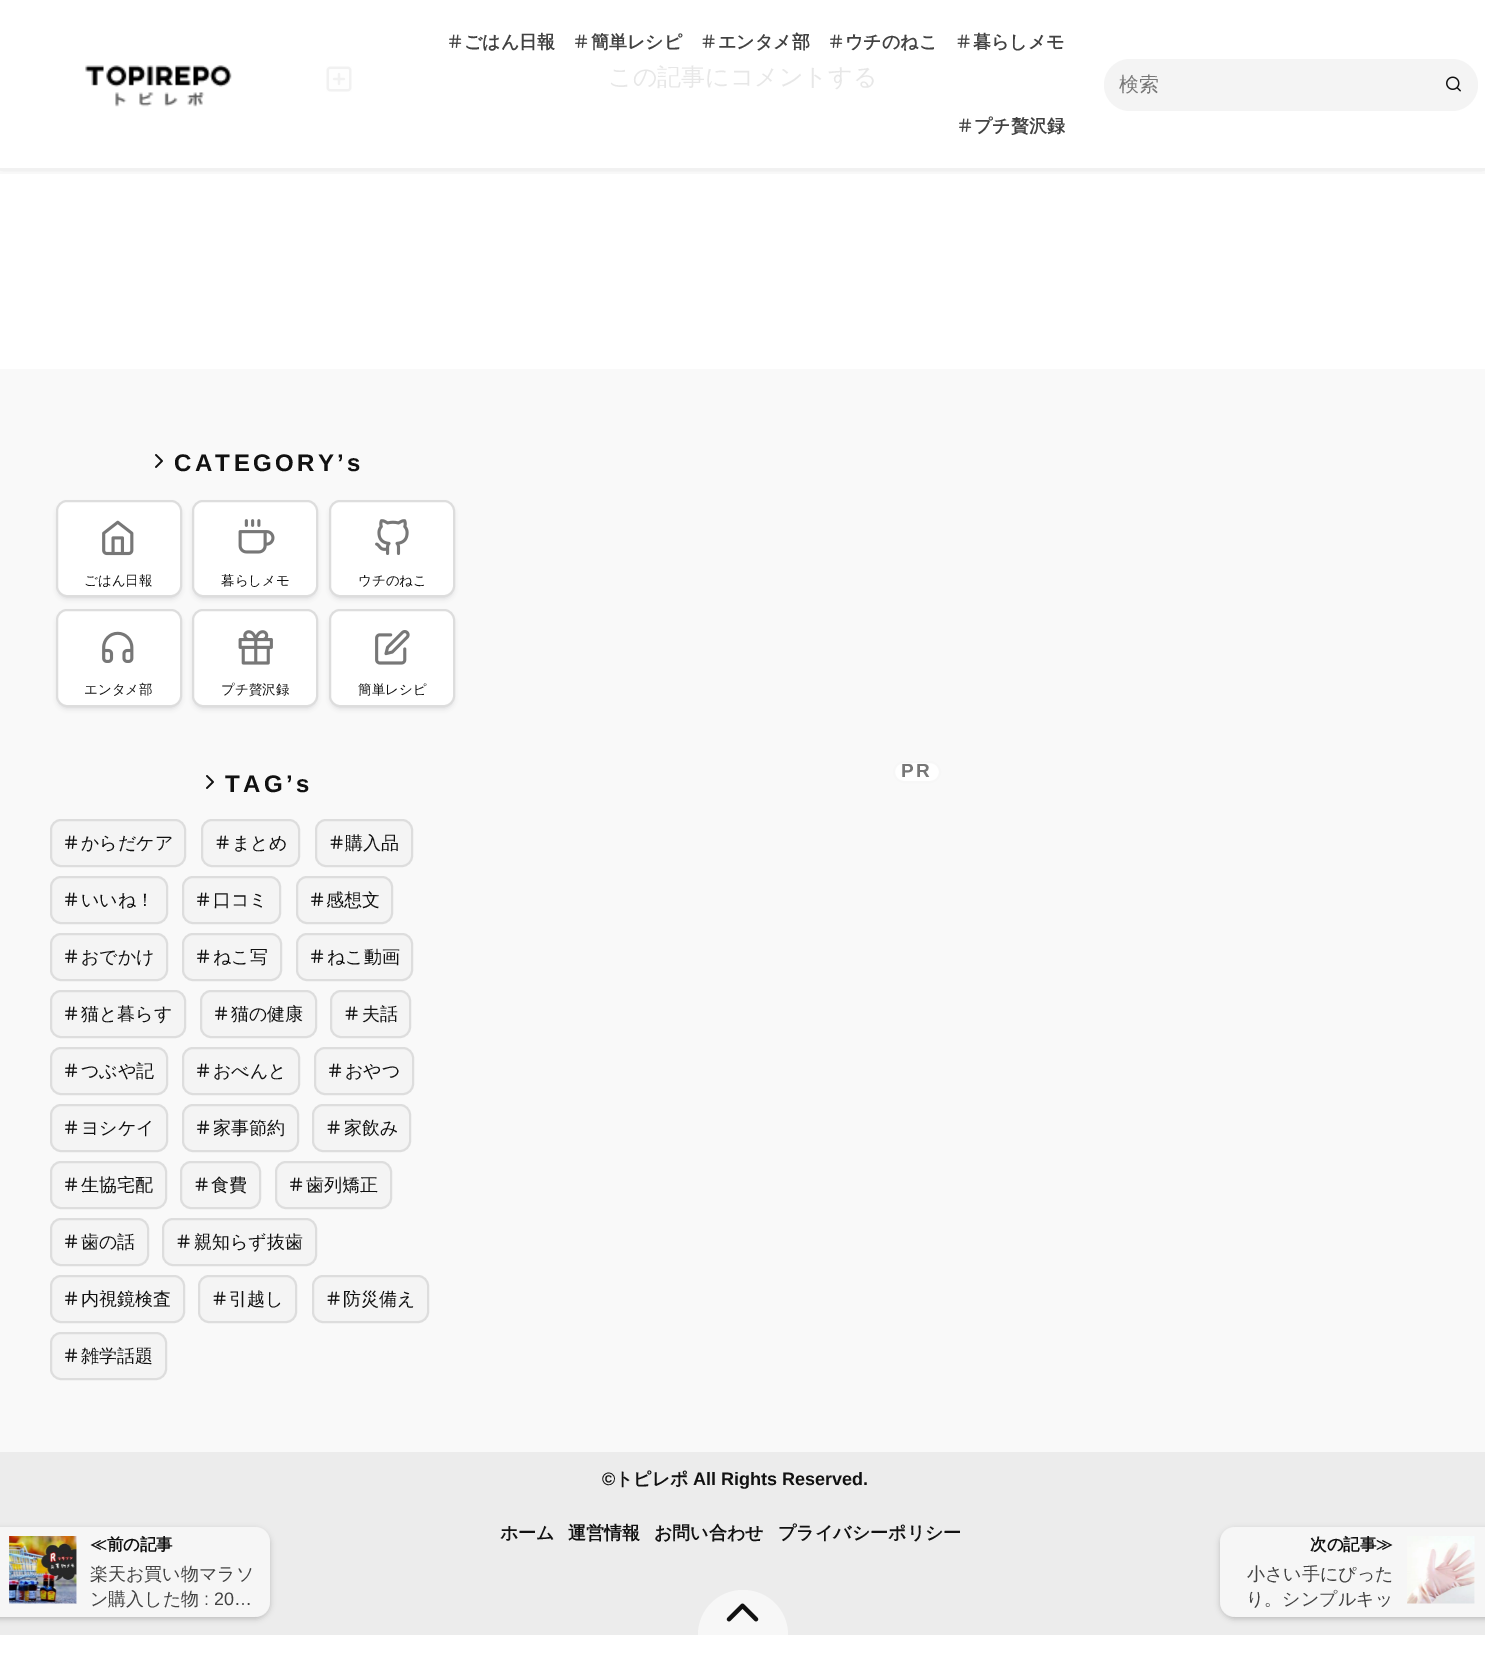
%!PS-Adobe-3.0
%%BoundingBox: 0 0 1485 1654
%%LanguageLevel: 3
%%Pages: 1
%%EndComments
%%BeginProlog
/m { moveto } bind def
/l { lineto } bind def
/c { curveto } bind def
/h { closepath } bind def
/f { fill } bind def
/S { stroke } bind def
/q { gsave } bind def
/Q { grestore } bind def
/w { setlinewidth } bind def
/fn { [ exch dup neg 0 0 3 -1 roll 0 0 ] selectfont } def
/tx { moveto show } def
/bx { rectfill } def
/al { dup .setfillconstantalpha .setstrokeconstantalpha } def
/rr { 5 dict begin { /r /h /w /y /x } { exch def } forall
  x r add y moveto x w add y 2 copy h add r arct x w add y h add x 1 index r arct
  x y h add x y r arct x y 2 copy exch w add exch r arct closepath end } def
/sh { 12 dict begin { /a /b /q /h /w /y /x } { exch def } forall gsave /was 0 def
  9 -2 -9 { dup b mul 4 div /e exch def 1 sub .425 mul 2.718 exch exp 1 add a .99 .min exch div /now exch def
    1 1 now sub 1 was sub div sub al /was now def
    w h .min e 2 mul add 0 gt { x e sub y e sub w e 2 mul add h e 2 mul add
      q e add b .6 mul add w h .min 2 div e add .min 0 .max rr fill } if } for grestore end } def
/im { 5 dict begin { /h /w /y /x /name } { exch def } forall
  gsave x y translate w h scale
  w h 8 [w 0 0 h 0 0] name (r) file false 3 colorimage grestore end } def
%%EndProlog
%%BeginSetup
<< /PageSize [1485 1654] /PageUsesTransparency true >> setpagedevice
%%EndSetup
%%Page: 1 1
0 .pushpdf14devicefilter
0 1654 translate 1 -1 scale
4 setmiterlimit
1 setgray
0 0 1485 1654 bx
(image5.raw) 326 66 26 26 im
q
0 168 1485 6 rectclip
0 setgray
0 -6 1485 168 0 7.5 0.34 sh
Q
(image0.raw) 85 65 147 42 im
(image1.raw) 449 34 13 14 im
/WenQuanYiZenHei-Bold 18 fn
0.259 setgray
(ごはん日報) 464 48 tx
(image1.raw) 575 34 13 14 im
(簡単レシピ) 591 48 tx
(image2.raw) 702 34 13 14 im
(エンタメ部) 718 48 tx
(image1.raw) 830 34 13 14 im
(ウチのねこ) 845 48 tx
(image2.raw) 957 34 13 14 im
(暮らしメモ) 973 48 tx
(image3.raw) 959 118 13 14 im
(プチ贅沢録) 974 132 tx
0.957 setgray
1104 59 374 52 26 rr f
/WenQuanYiZenHei-Medium 20 fn
0.467 setgray
(検索) 1119 91 tx
(image4.raw) 1446 76 15 16 im
/WenQuanYiZenHei-Medium 24 fn
0.906 setgray
(この記事にコメントする) 608 85 tx
0.976 setgray
0 369 1485 1083 bx
(image6.raw) 155 454 8 14 im
/LiberationSans-Bold 24 fn
0.067 setgray
174 471 m 3.4 0 (CATEGORY’s) ashow
0.039 0.059 0.067 setrgbcolor
59 506 120 91 8 3 0.22 sh
1 setgray
57 501 124 95 10 rr q f Q
0.867 setgray
2 w
S
(image7.raw) 102 520 32 36 im
/WenQuanYiZenHei-Medium 13.5 fn
0.067 setgray
(ごはん日報) 84 585 tx
0.039 0.059 0.067 setrgbcolor
195 506 120 91 8 3 0.22 sh
1 setgray
193 501 124 95 10 rr q f Q
0.867 setgray
S
(image8.raw) 238 519 37 35 im
0.067 setgray
(暮らしメモ) 221 585 tx
0.039 0.059 0.067 setrgbcolor
332 506 120 91 8 3 0.22 sh
1 setgray
330 501 124 95 10 rr q f Q
0.867 setgray
S
(image9.raw) 375 519 34 36 im
0.067 setgray
(ウチのねこ) 358 585 tx
0.039 0.059 0.067 setrgbcolor
59 615 120 92 8 3 0.22 sh
1 setgray
57 610 124 96 10 rr q f Q
0.867 setgray
S
(image10.raw) 102 631 32 32 im
0.067 setgray
(エンタメ部) 84 694 tx
0.039 0.059 0.067 setrgbcolor
195 615 120 92 8 3 0.22 sh
1 setgray
193 610 124 96 10 rr q f Q
0.867 setgray
S
(image11.raw) 238 630 35 35 im
0.067 setgray
(プチ贅沢録) 221 694 tx
0.039 0.059 0.067 setrgbcolor
332 615 120 92 8 3 0.22 sh
1 setgray
330 610 124 96 10 rr q f Q
0.867 setgray
S
(image12.raw) 375 630 35 35 im
0.067 setgray
(簡単レシピ) 358 694 tx
(image6.raw) 206 775 8 14 im
/LiberationSans-Bold 24 fn
225 792 m 3.4 0 (TAG’s) ashow
0.957 setgray
51 820 134 46 10 rr q f Q
0.867 setgray
S
(image13.raw) 65 835 13 14 im
/WenQuanYiZenHei-Medium 18 fn
0.067 setgray
(からだケア) 81 849 tx
0.957 setgray
202 820 97 46 10 rr q f Q
0.867 setgray
S
(image14.raw) 216 835 13 14 im
0.067 setgray
(まとめ) 232 849 tx
0.957 setgray
316 820 96 46 10 rr q f Q
0.867 setgray
S
(image14.raw) 330 835 13 14 im
0.067 setgray
(購入品) 345 849 tx
0.957 setgray
51 877 116 46 10 rr q f Q
0.867 setgray
S
(image13.raw) 65 892 13 14 im
0.067 setgray
(いいね！) 81 906 tx
0.957 setgray
183 877 97 46 10 rr q f Q
0.867 setgray
S
(image13.raw) 197 892 13 14 im
0.067 setgray
(口コミ) 213 906 tx
0.957 setgray
297 877 95 46 10 rr q f Q
0.867 setgray
S
(image13.raw) 311 892 13 14 im
0.067 setgray
(感想文) 326 906 tx
0.957 setgray
51 934 116 46 10 rr q f Q
0.867 setgray
S
(image13.raw) 65 949 13 14 im
0.067 setgray
(おでかけ) 81 963 tx
0.957 setgray
183 934 98 46 10 rr q f Q
0.867 setgray
S
(image13.raw) 197 949 13 14 im
0.067 setgray
(ねこ写) 213 963 tx
0.957 setgray
297 934 115 46 10 rr q f Q
0.867 setgray
S
(image13.raw) 311 949 13 14 im
0.067 setgray
(ねこ動画) 327 963 tx
0.957 setgray
51 991 134 46 10 rr q f Q
0.867 setgray
S
(image13.raw) 65 1006 13 14 im
0.067 setgray
(猫と暮らす) 81 1020 tx
0.957 setgray
201 991 115 46 10 rr q f Q
0.867 setgray
S
(image13.raw) 215 1006 13 14 im
0.067 setgray
(猫の健康) 231 1020 tx
0.957 setgray
331 991 79 46 10 rr q f Q
0.867 setgray
S
(image14.raw) 345 1006 13 14 im
0.067 setgray
(夫話) 362 1020 tx
0.957 setgray
51 1048 116 46 10 rr q f Q
0.867 setgray
S
(image13.raw) 65 1063 13 14 im
0.067 setgray
(つぶや記) 81 1077 tx
0.957 setgray
183 1048 116 46 10 rr q f Q
0.867 setgray
S
(image13.raw) 197 1063 13 14 im
0.067 setgray
(おべんと) 213 1077 tx
0.957 setgray
315 1048 98 46 10 rr q f Q
0.867 setgray
S
(image13.raw) 329 1063 13 14 im
0.067 setgray
(おやつ) 345 1077 tx
0.957 setgray
51 1105 116 46 10 rr q f Q
0.867 setgray
S
(image13.raw) 65 1120 13 14 im
0.067 setgray
(ヨシケイ) 81 1134 tx
0.957 setgray
183 1105 115 46 10 rr q f Q
0.867 setgray
S
(image13.raw) 197 1120 13 14 im
0.067 setgray
(家事節約) 213 1134 tx
0.957 setgray
313 1105 97 46 10 rr q f Q
0.867 setgray
S
(image14.raw) 327 1120 13 14 im
0.067 setgray
(家飲み) 344 1134 tx
0.957 setgray
51 1162 115 46 10 rr q f Q
0.867 setgray
S
(image13.raw) 65 1177 13 14 im
0.067 setgray
(生協宅配) 81 1191 tx
0.957 setgray
181 1162 79 46 10 rr q f Q
0.867 setgray
S
(image14.raw) 195 1177 13 14 im
0.067 setgray
(食費) 211 1191 tx
0.957 setgray
276 1162 115 46 10 rr q f Q
0.867 setgray
S
(image13.raw) 290 1177 13 14 im
0.067 setgray
(歯列矯正) 306 1191 tx
0.957 setgray
51 1219 97 46 10 rr q f Q
0.867 setgray
S
(image13.raw) 65 1234 13 14 im
0.067 setgray
(歯の話) 81 1248 tx
0.957 setgray
163 1219 153 46 10 rr q f Q
0.867 setgray
S
(image14.raw) 177 1234 13 14 im
0.067 setgray
(親知らず抜歯) 194 1248 tx
0.957 setgray
51 1276 133 46 10 rr q f Q
0.867 setgray
S
(image13.raw) 65 1291 13 14 im
0.067 setgray
(内視鏡検査) 81 1305 tx
0.957 setgray
199 1276 97 46 10 rr q f Q
0.867 setgray
S
(image14.raw) 213 1291 13 14 im
0.067 setgray
(引越し) 229 1305 tx
0.957 setgray
313 1276 115 46 10 rr q f Q
0.867 setgray
S
(image14.raw) 327 1291 13 14 im
0.067 setgray
(防災備え) 343 1305 tx
0.957 setgray
51 1333 115 46 10 rr q f Q
0.867 setgray
S
(image13.raw) 65 1348 13 14 im
0.067 setgray
(雑学話題) 81 1362 tx
1 setgray
894 762 46 20 10 rr q f Q
0.969 setgray
S
/LiberationSans-Bold 19 fn
0.467 setgray
901 777 m 2 0 (PR) ashow
0.925 setgray
0 1452 1485 183 bx
/LiberationSans-Bold 18 fn
0.067 setgray
(©) 602 1485 tx
/WenQuanYiZenHei-Bold 18 fn
(トピレポ) 615 1485 tx
/LiberationSans-Bold 18 fn
(All Rights Reserved.) 693 1485 tx
/WenQuanYiZenHei-Bold 18 fn
(ホーム) 500 1539 tx
(運営情報) 568 1539 tx
(お問い合わせ) 654 1539 tx
(プライバシーポリシー) 778 1539 tx
0.969 setgray
743 1590 m 768 1590 788 1610 788 1635 c 698 1635 l 698 1610 718 1590 743 1590 c h f
(image15.raw) 726 1603 33 19 im
q
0 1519 m 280 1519 l 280 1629 l 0 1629 l h -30 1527 m 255 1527 l 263.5 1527 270 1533.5 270 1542 c 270 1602 l 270 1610.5 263.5 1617 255 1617 c -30 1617 l h eoclip newpath
0.569 setgray
-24 1529 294 90 15 3 0.54 sh
Q
0.9 al
-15 1527 m 255 1527 l 263.5 1527 270 1533.5 270 1542 c 270 1602 l 270 1610.5 263.5 1617 255 1617 c -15 1617 l h f
1 al
(image16.raw) 9 1536 68 68 im
/WenQuanYiZenHei-Bold 16.5 fn
0.067 setgray
(≪前の記事) 90 1550 tx
/WenQuanYiZenHei-Medium 18 fn
0.259 setgray
(楽天お買い物マラソ) 90 1580 tx
(ン購入した物) 90 1605 tx
/LiberationSans-Regular 18 fn
(: 20…) 204 1605 tx
q
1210 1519 m 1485 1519 l 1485 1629 l 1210 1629 l h 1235 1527 m 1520 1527 l 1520 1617 l 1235 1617 l 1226.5 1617 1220 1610.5 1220 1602 c 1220 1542 l 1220 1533.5 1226.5 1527 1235 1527 c h eoclip newpath
0.569 setgray
1220 1529 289 90 15 3 0.54 sh
Q
0.9 al
0.969 setgray
1235 1527 m 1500 1527 l 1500 1617 l 1235 1617 l 1226.5 1617 1220 1610.5 1220 1602 c 1220 1542 l 1220 1533.5 1226.5 1527 1235 1527 c h f
/WenQuanYiZenHei-Bold 16.5 fn
1 al
0.067 setgray
(次の記事≫) 1310 1550 tx
/WenQuanYiZenHei-Medium 18 fn
0.259 setgray
(小さい手にぴった) 1247 1580 tx
(り。シンプルキッ) 1246 1605 tx
(image17.raw) 1407 1536 68 68 im
.poppdf14devicefilter showpage
%%EOF
